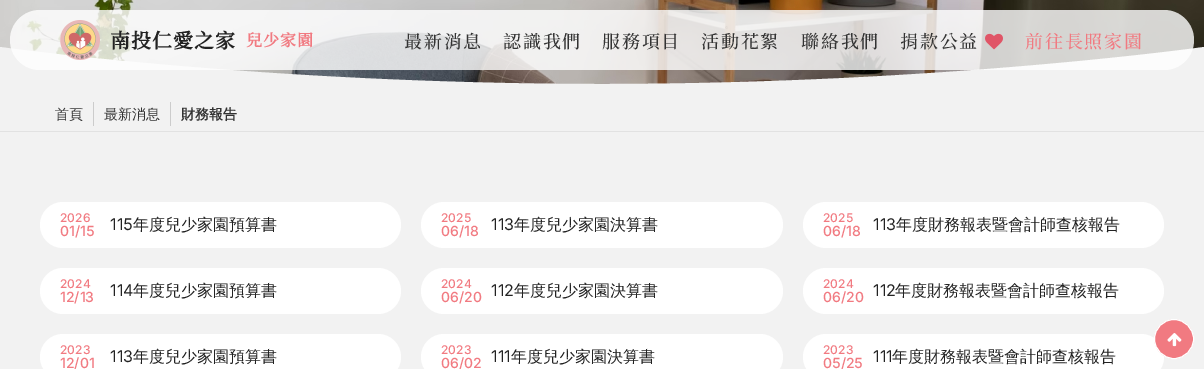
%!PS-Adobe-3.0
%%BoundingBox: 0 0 1204 369
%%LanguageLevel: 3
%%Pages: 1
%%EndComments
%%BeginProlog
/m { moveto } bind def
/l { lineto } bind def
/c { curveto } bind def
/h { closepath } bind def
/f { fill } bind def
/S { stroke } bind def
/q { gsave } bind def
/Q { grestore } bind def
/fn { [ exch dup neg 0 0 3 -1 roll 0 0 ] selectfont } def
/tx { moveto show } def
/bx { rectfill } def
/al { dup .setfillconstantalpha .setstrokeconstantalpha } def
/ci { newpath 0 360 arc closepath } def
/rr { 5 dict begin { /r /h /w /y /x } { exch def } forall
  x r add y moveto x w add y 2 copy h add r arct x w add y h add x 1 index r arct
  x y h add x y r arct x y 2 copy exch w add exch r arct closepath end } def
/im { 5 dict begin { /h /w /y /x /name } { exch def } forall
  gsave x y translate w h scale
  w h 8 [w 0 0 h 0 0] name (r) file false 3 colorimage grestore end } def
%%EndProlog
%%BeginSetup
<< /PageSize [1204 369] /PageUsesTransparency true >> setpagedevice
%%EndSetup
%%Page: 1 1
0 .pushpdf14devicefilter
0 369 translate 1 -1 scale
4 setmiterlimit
0.949 setgray
0 0 1204 369 bx
(image2.raw) 0 0 1204 84 im
0 97 m 0 47 l 0 47 262 84 602 84 c 942 84 1204 47 1204 47 c 1204 97 l h f
0.8 al
1 setgray
10 10 1184 60 30 rr f
1 al
(image0.raw) 60 20 40 40 im
/NotoSerifTC-Bold 20 fn
0.133 setgray
110 48 m 1 0 (南投仁愛之家) ashow
/NotoSerifTC-Bold 16 fn
0.945 0.478 0.506 setrgbcolor
246 46 m 1 0 (兒少家園) ashow
/NotoSerifTC-Medium 18 fn
0.2 setgray
404 48 m 1.75 0 (最新消息) ashow
503 48 m 1.75 0 (認識我們) ashow
602 48 m 1.75 0 (服務項目) ashow
701 48 m 1.75 0 (活動花絮) ashow
801 48 m 1.75 0 (聯絡我們) ashow
900 48 m 1.75 0 (捐款公益) ashow
(image1.raw) 985 33 18 17 im
0.945 0.478 0.506 setrgbcolor
1025 48 m 1.75 0 (前往長照家園) ashow
0.886 setgray
0 131 1204 1 bx
/WenQuanYiZenHei-Medium 14 fn
0.2 setgray
(首頁) 55 119 tx
0.8 setgray
93 102 1 24 bx
0.2 setgray
(最新消息) 104 119 tx
0.8 setgray
170 102 1 24 bx
/WenQuanYiZenHei-Bold 14 fn
0.2 setgray
(財務報告) 181 119 tx
1 setgray
40 202 361 46 23 rr f
/Inter-Medium 12 fn
0.945 0.478 0.506 setrgbcolor
(2026) 60 222 tx
/Inter-Medium 14 fn
(01/15) 60 236 tx
/Inter-Regular 16 fn
0.133 setgray
(115) 110 230 tx
/WenQuanYiZenHei-Medium 16 fn
(年度兒少家園預算書) 133 230 tx
1 setgray
421 202 362 46 23 rr f
/Inter-Medium 12 fn
0.945 0.478 0.506 setrgbcolor
(2025) 441 222 tx
/Inter-Medium 14 fn
(06/18) 441 236 tx
/Inter-Regular 16 fn
0.133 setgray
(113) 491 230 tx
/WenQuanYiZenHei-Medium 16 fn
(年度兒少家園決算書) 514 230 tx
1 setgray
803 202 361 46 23 rr f
/Inter-Medium 12 fn
0.945 0.478 0.506 setrgbcolor
(2025) 823 222 tx
/Inter-Medium 14 fn
(06/18) 823 236 tx
/Inter-Regular 16 fn
0.133 setgray
(113) 873 230 tx
/WenQuanYiZenHei-Medium 16 fn
(年度財務報表暨會計師查核報告) 896 230 tx
1 setgray
40 268 361 46 23 rr f
/Inter-Medium 12 fn
0.945 0.478 0.506 setrgbcolor
(2024) 60 288 tx
/Inter-Medium 14 fn
(12/13) 60 302 tx
/Inter-Regular 16 fn
0.133 setgray
(114) 110 296 tx
/WenQuanYiZenHei-Medium 16 fn
(年度兒少家園預算書) 133 296 tx
1 setgray
421 268 362 46 23 rr f
/Inter-Medium 12 fn
0.945 0.478 0.506 setrgbcolor
(2024) 441 288 tx
/Inter-Medium 14 fn
(06/20) 441 302 tx
/Inter-Regular 16 fn
0.133 setgray
(112) 491 296 tx
/WenQuanYiZenHei-Medium 16 fn
(年度兒少家園決算書) 514 296 tx
1 setgray
803 268 361 46 23 rr f
/Inter-Medium 12 fn
0.945 0.478 0.506 setrgbcolor
(2024) 823 288 tx
/Inter-Medium 14 fn
(06/20) 823 302 tx
/Inter-Regular 16 fn
0.133 setgray
(112) 873 296 tx
/WenQuanYiZenHei-Medium 16 fn
(年度財務報表暨會計師查核報告) 895 296 tx
1 setgray
40 334 361 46 23 rr f
/Inter-Medium 12 fn
0.945 0.478 0.506 setrgbcolor
(2023) 60 354 tx
/Inter-Medium 14 fn
(12/01) 60 368 tx
/Inter-Regular 16 fn
0.133 setgray
(113) 110 362 tx
/WenQuanYiZenHei-Medium 16 fn
(年度兒少家園預算書) 133 362 tx
1 setgray
421 334 362 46 23 rr f
/Inter-Medium 12 fn
0.945 0.478 0.506 setrgbcolor
(2023) 441 354 tx
/Inter-Medium 14 fn
(06/02) 441 368 tx
/Inter-Regular 16 fn
0.133 setgray
(111) 491 362 tx
/WenQuanYiZenHei-Medium 16 fn
(年度兒少家園決算書) 511 362 tx
1 setgray
803 334 361 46 23 rr f
/Inter-Medium 12 fn
0.945 0.478 0.506 setrgbcolor
(2023) 823 354 tx
/Inter-Medium 14 fn
(05/25) 823 368 tx
/Inter-Regular 16 fn
0.133 setgray
(111) 873 362 tx
/WenQuanYiZenHei-Medium 16 fn
(年度財務報表暨會計師查核報告) 892 362 tx
0.945 0.478 0.506 setrgbcolor
1174 339 19.5 ci q f Q
1 setgray
S
(image3.raw) 1167 333 15 14 im
.poppdf14devicefilter showpage
%%EOF
